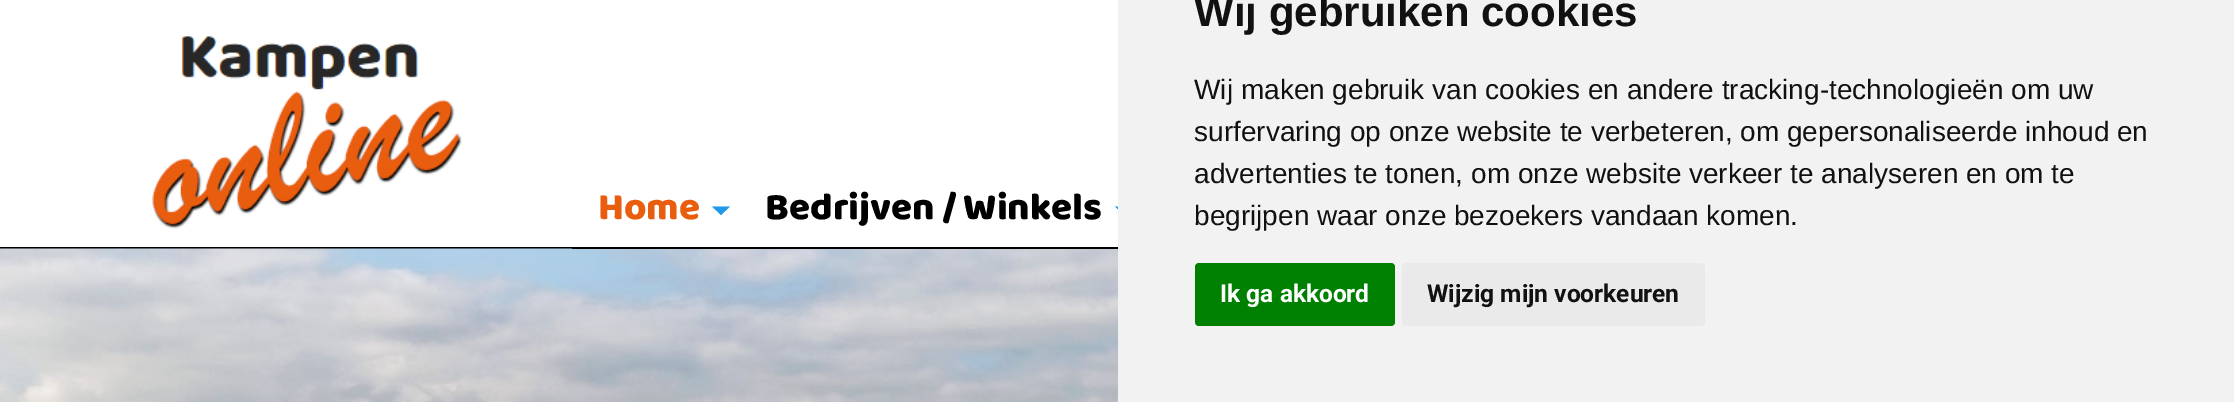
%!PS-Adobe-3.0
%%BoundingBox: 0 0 2234 402
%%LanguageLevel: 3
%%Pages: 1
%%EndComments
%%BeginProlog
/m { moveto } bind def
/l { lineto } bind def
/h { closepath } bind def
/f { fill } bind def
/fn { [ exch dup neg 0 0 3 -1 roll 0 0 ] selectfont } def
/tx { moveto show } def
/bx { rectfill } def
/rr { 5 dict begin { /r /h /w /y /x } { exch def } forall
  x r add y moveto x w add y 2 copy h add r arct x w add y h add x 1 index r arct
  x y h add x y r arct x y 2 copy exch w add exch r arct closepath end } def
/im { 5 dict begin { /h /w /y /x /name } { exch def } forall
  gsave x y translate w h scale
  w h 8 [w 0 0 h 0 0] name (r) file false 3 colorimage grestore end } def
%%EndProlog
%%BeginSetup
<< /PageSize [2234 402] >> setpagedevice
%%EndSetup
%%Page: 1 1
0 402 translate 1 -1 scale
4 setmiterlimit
1 setgray
0 0 2234 402 bx
(image0.raw) 152 36 310 193 im
0 setgray
0 247 572 2 bx
(image1.raw) 0 248 1118 154 im
572 247 546 2 bx
/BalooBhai-Regular 38.5 fn
0.914 0.365 0.059 setrgbcolor
(Home) 598 219 tx
0.129 0.6 0.91 setrgbcolor
712 206.5 m 730 206.5 l 721 215 l h f
0 setgray
(Bedrijven / Winkels) 765 219 tx
0.129 0.6 0.91 setrgbcolor
1115 206.5 m 1132 206.5 l 1123.5 215 l h f
0.949 setgray
1118 0 1116 402 bx
/LiberationSans-Bold 42 fn
0.067 setgray
(Wij gebruiken cookies) 1194 26 tx
/LiberationSans-Regular 28 fn
(Wij maken gebruik van cookies en andere tracking-technologieën om uw) 1194 99 tx
(surfervaring op onze website te verbeteren, om gepersonaliseerde inhoud en) 1194 141 tx
(advertenties te tonen, om onze website verkeer te analyseren en om te) 1194 183 tx
(begrijpen waar onze bezoekers vandaan komen.) 1194 225 tx
0 0.502 0 setrgbcolor
1195 263 200 63 4 rr f
/Roboto-Bold 24.5 fn
1 setgray
(Ik ga akkoord) 1220 302 tx
0.918 setgray
1402 263 303 63 4 rr f
0.067 setgray
(Wijzig mijn voorkeuren) 1427 302 tx
showpage
%%EOF
